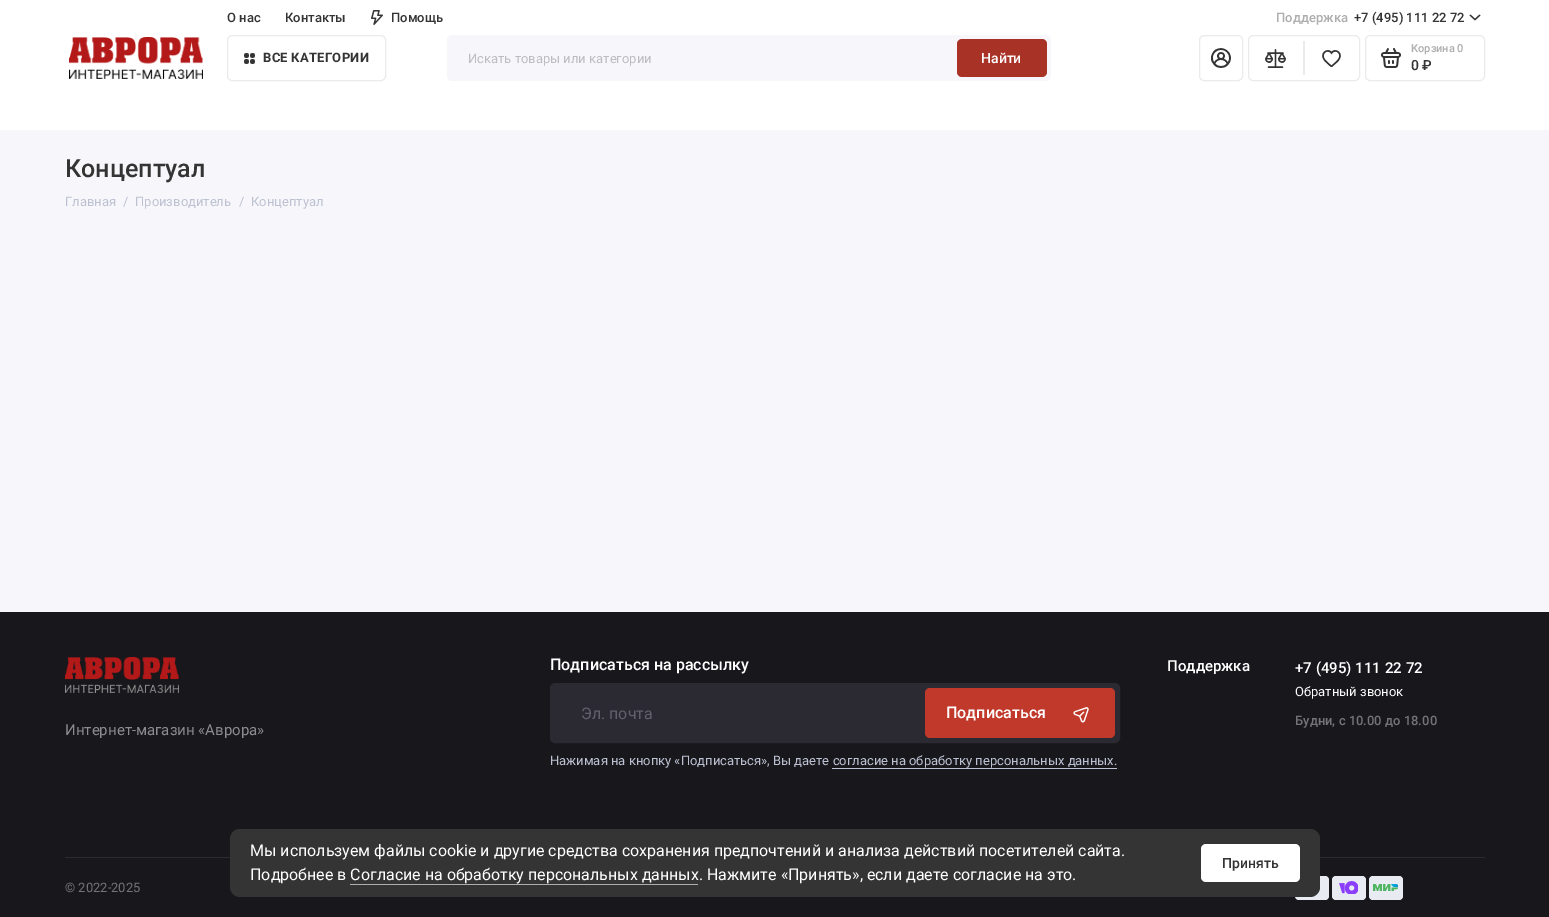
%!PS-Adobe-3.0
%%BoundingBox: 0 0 1549 917
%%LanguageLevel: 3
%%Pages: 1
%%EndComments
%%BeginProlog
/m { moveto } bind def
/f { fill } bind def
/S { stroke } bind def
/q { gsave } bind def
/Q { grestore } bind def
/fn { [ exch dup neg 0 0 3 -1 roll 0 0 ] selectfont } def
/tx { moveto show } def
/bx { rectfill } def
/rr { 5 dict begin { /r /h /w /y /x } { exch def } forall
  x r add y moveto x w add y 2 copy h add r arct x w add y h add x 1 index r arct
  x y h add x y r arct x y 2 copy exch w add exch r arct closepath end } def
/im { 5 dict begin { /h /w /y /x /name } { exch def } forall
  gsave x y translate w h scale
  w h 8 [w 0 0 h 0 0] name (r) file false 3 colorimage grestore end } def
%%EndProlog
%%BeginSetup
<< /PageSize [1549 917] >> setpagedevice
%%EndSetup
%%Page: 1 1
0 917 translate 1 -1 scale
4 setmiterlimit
0.969 0.969 0.984 setrgbcolor
0 0 1549 917 bx
1 setgray
0 0 1549 130 bx
/Roboto-Medium 13 fn
0.204 setgray
(О нас) 227 22 tx
(Контакты) 285 22 tx
(image0.raw) 371 10 12 15 im
(Помощь) 391 22 tx
0.682 setgray
(Поддержка) 1276 22 tx
0.204 setgray
(+7 \(495\) 111 22 72) 1354 22 tx
(image1.raw) 1469 14 12 7 im
(image2.raw) 69 37 134 42 im
0.922 setgray
227.5 35.5 158 45 4.5 rr S
(image3.raw) 244 53 11 11 im
/Roboto-Bold 13 fn
0.204 setgray
263 62 m 0.25 0 (ВСЕ КАТЕГОРИИ) ashow
0.969 0.969 0.984 setrgbcolor
447 35 604 46 5 rr f
/Roboto-Regular 13 fn
0.741 0.741 0.749 setrgbcolor
(Искать товары или категории) 468 63 tx
0.663 0.196 0.149 setrgbcolor
957 39 90 38 5 rr f
/Roboto-Medium 14 fn
1 setgray
(Найти) 981 63 tx
0.922 setgray
1199.5 35.5 43 45 4.5 rr S
(image4.raw) 1211 48 20 20 im
1248.5 35.5 111 45 4.5 rr S
(image5.raw) 1265 49 21 19 im
1303 41 2 34 bx
(image6.raw) 1322 50 19 17 im
1365.5 35.5 119 45 4.5 rr S
(image7.raw) 1381 48 20 20 im
/Roboto-Medium 11 fn
0.682 setgray
(Корзина 0) 1411 52 tx
/Roboto-Medium 14 fn
0.204 setgray
(0 ₽) 1411 70 tx
/Roboto-Medium 25 fn
(Концептуал) 65 177 tx
/Roboto-Regular 13 fn
0.741 0.761 0.827 setrgbcolor
(Главная) 65 206 tx
(/) 123 206 tx
(Производитель) 135 206 tx
(/) 239 206 tx
(Концептуал) 251 206 tx
0.094 0.09 0.106 setrgbcolor
0 612 1549 305 bx
/Roboto-Medium 16 fn
1 setgray
(Подписаться на рассылку) 550 670 tx
0.169 0.161 0.192 setrgbcolor
550.5 683.5 569 59 4.5 rr q f Q
S
/Roboto-Regular 16 fn
0.388 0.376 0.424 setrgbcolor
(Эл. почта) 581 719 tx
0.753 0.224 0.169 setrgbcolor
925 688 190 50 5 rr f
/Roboto-Medium 16 fn
1 setgray
(Подписаться) 946 718 tx
(image8.raw) 1073 707 16 16 im
/Roboto-Regular 13 fn
0.741 0.761 0.827 setrgbcolor
(Нажимая на кнопку «Подписаться», Вы даете согласие на обработку персональных данных.) 550 765 tx
832 768 285 1 bx
/Roboto-Medium 15 fn
1 setgray
(Поддержка) 1167 671 tx
(+7 \(495\) 111 22 72) 1295 673 tx
/Roboto-Regular 13 fn
(Обратный звонок) 1295 696 tx
/Roboto-Medium 13 fn
0.455 0.455 0.463 setrgbcolor
(Будни, с 10.00 до 18.00) 1295 725 tx
(image9.raw) 65 657 114 36 im
/Roboto-Regular 15 fn
0.549 0.545 0.553 setrgbcolor
(Интернет-магазин «Аврора») 65 735 tx
0.173 0.173 0.188 setrgbcolor
65 857 1420 1 bx
/Roboto-Regular 13 fn
0.455 0.455 0.463 setrgbcolor
(© 2022-2025) 65 892 tx
0.91 0.925 0.949 setrgbcolor
1295 876 34 24 4 rr f
1332 876 34 24 4 rr f
(image10.raw) 1339 881 19 13 im
1369 876 34 24 4 rr f
(image11.raw) 1373 884 25 7 im
0.204 setgray
230 829 1090 68 10 rr f
/Roboto-Regular 16 fn
1 setgray
(Мы используем файлы cookie и другие средства сохранения предпочтений и анализа действий посетителей сайта.) 250 856 tx
(Подробнее в Cогласие на обработку персональных данных. Нажмите «Принять», если даете согласие на это.) 250 880 tx
0.682 setgray
350 884 348 1 bx
1 setgray
1201 844 99 38 5 rr f
/Roboto-Medium 14 fn
0.204 setgray
(Принять) 1222 868 tx
showpage
%%EOF
